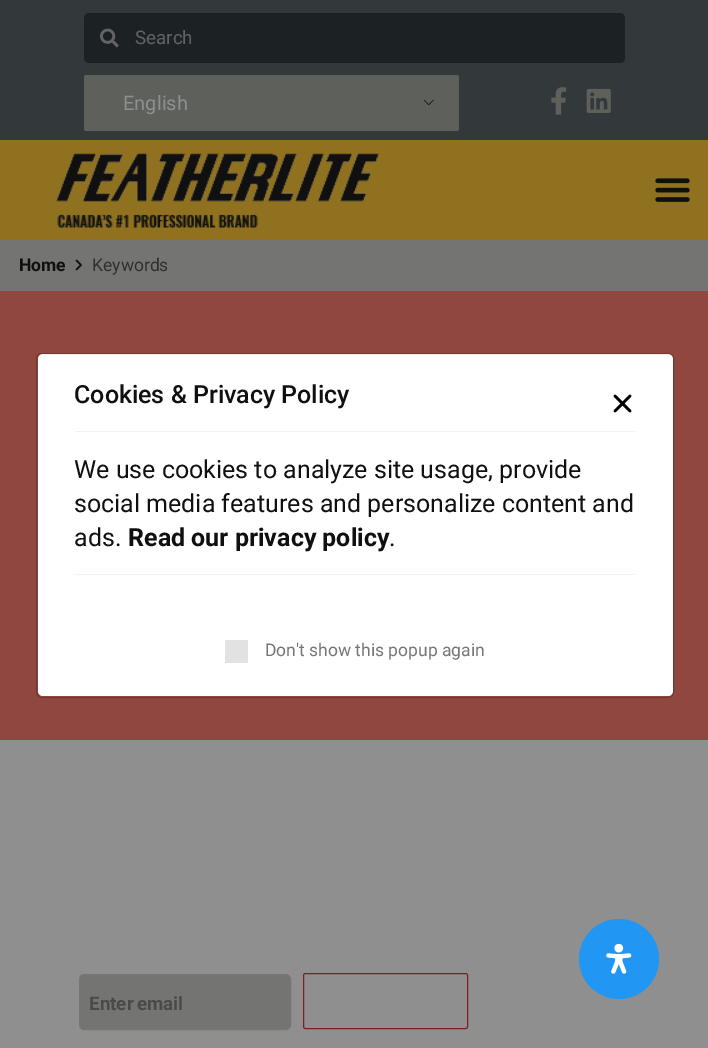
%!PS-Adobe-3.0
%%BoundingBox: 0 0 708 1048
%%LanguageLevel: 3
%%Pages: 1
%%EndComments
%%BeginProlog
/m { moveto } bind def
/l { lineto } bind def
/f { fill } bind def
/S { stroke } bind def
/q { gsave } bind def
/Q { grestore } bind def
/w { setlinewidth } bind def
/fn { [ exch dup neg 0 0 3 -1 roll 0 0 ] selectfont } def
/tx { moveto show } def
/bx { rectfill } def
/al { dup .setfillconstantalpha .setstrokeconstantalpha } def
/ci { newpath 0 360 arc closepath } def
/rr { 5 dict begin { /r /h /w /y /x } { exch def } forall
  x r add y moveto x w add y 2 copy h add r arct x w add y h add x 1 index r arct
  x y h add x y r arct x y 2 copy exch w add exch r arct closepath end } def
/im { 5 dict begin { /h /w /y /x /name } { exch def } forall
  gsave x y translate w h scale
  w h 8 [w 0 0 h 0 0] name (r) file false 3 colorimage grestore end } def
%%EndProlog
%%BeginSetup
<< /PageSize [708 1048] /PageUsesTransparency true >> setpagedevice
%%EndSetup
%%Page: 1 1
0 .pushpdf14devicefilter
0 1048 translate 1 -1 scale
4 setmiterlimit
0.561 setgray
0 0 708 1048 bx
0.2 0.224 0.231 setrgbcolor
0 0 708 140 bx
0.11 0.129 0.137 setrgbcolor
84 13 541 50 5 rr f
(image0.raw) 100 28 19 20 im
/Roboto-Regular 18.75 fn
0.38 0.388 0.392 setrgbcolor
(Search) 135 44 tx
0.369 0.376 0.357 setrgbcolor
84 75 375 56 2.5 rr f
(image1.raw) 424 99 10 7 im
/Roboto-Regular 20 fn
0.561 setgray
(English) 123 110 tx
(image2.raw) 551 87 16 28 im
(image3.raw) 586 88 25 25 im
0.561 0.443 0.125 setrgbcolor
0 140 708 100 bx
(image4.raw) 56 153 323 75 im
(image5.raw) 655 178 35 24 im
0.455 0.459 0.447 setrgbcolor
0 240 708 51 bx
/Roboto-Bold 17.5 fn
0.063 setgray
(Home) 19 271 tx
1.5 w
1 setlinecap
1 setlinejoin
76.5 269.5 m 81 265 l 76.5 260.5 l S
/Roboto-Regular 17.5 fn
0.188 0.188 0.192 setrgbcolor
(Keywords) 92 271 tx
0.561 0.278 0.251 setrgbcolor
0 291 708 449 bx
0.455 0.459 0.447 setrgbcolor
79.5 974.5 211 55 4.5 rr q f Q
0.463 setgray
1 w
0 setlinecap
0 setlinejoin
S
/Roboto-Bold 18.75 fn
0.29 setgray
89 1010 m -1 0 32 (Enter email) widthshow
0.486 0.118 0.133 setrgbcolor
303.5 973.5 164 55 2 rr S
1 setgray
38 354 635 342 5 rr f
0.2 al
0 setgray
36.5 353.5 637 344 5.5 rr S
/Roboto-Medium 25 fn
1 al
0.063 setgray
(Cookies & Privacy Policy) 74 403 tx
0.949 setgray
75 431 560 1 bx
/Roboto-Regular 25 fn
0.063 setgray
(We use cookies to analyze site usage, provide) 74 478 tx
(social media features and personalize content and) 74 512 tx
(ads.) 74 546 tx
/Roboto-Bold 25 fn
(Read our privacy policy) 128 546 tx
/Roboto-Regular 25 fn
(.) 389 546 tx
0.949 setgray
75 574 560 1 bx
0.886 setgray
225 640 23 23 bx
/Roboto-Regular 17.5 fn
0.463 setgray
(Don't show this popup again) 265 656 tx
0 setgray
2.5 w
1 setlinecap
1 setlinejoin
630 396 m 615 411 l 615 396 m 630 411 l S
0.129 0.588 0.953 setrgbcolor
619 959 40 ci f
(image6.raw) 606 944 26 30 im
.poppdf14devicefilter showpage
%%EOF
